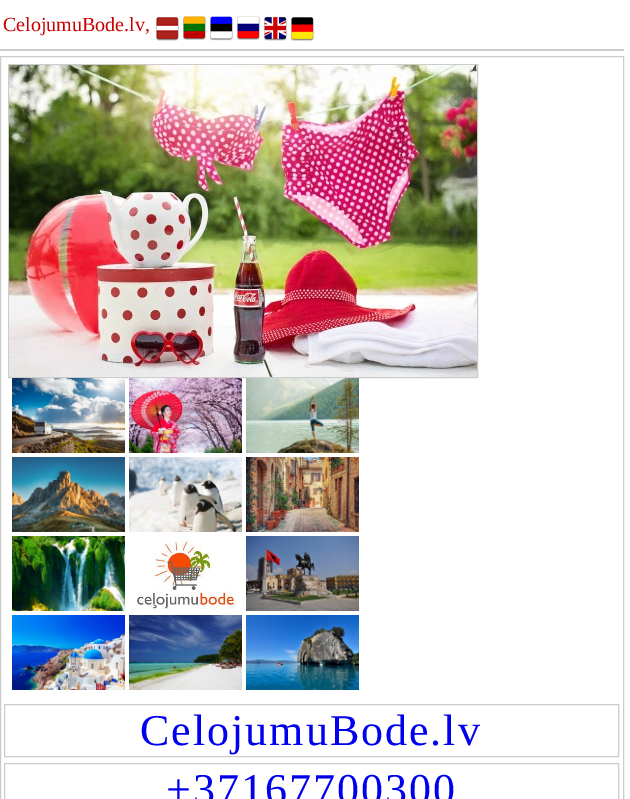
%!PS-Adobe-3.0
%%BoundingBox: 0 0 630 799
%%LanguageLevel: 3
%%Pages: 1
%%EndComments
%%BeginProlog
/m { moveto } bind def
/fn { [ exch dup neg 0 0 3 -1 roll 0 0 ] selectfont } def
/tx { moveto show } def
/bx { rectfill } def
/im { 5 dict begin { /h /w /y /x /name } { exch def } forall
  gsave x y translate w h scale
  w h 8 [w 0 0 h 0 0] name (r) file false 3 colorimage grestore end } def
%%EndProlog
%%BeginSetup
<< /PageSize [630 799] >> setpagedevice
%%EndSetup
%%Page: 1 1
0 799 translate 1 -1 scale
4 setmiterlimit
1 setgray
0 0 630 799 bx
/LiberationSerif-Regular 20 fn
0.8 0 0 setrgbcolor
(CelojumuBode.lv,) 3 31 tx
(image0.raw) 156 16 24 25 im
(image1.raw) 183 16 24 24 im
(image2.raw) 210 16 24 25 im
(image3.raw) 237 16 24 24 im
(image4.raw) 264 16 24 25 im
(image5.raw) 291 17 24 24 im
0.8 setgray
0 49 624 2 bx
0.5 56.5 623 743 rectstroke
8.5 64.5 469 313 rectstroke
(image6.raw) 9 65 468 312 im
(image7.raw) 12 378 113 75 im
(image8.raw) 129 378 113 75 im
(image9.raw) 246 378 113 75 im
(image10.raw) 12 457 113 75 im
(image11.raw) 129 457 113 75 im
(image12.raw) 246 457 113 75 im
(image13.raw) 12 536 113 75 im
(image14.raw) 137 536 98 74 im
(image15.raw) 246 536 113 75 im
(image16.raw) 12 615 113 75 im
(image17.raw) 129 615 113 75 im
(image18.raw) 246 615 113 75 im
4.5 704.5 614 52 rectstroke
/LiberationSerif-Regular 44 fn
0 0 0.933 setrgbcolor
140 745 m 2 0 (CelojumuBode.lv) ashow
0.8 setgray
4.5 763.5 614 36 rectstroke
0 0 0.933 setrgbcolor
166 804 m 2 0 (+37167700300) ashow
showpage
%%EOF
